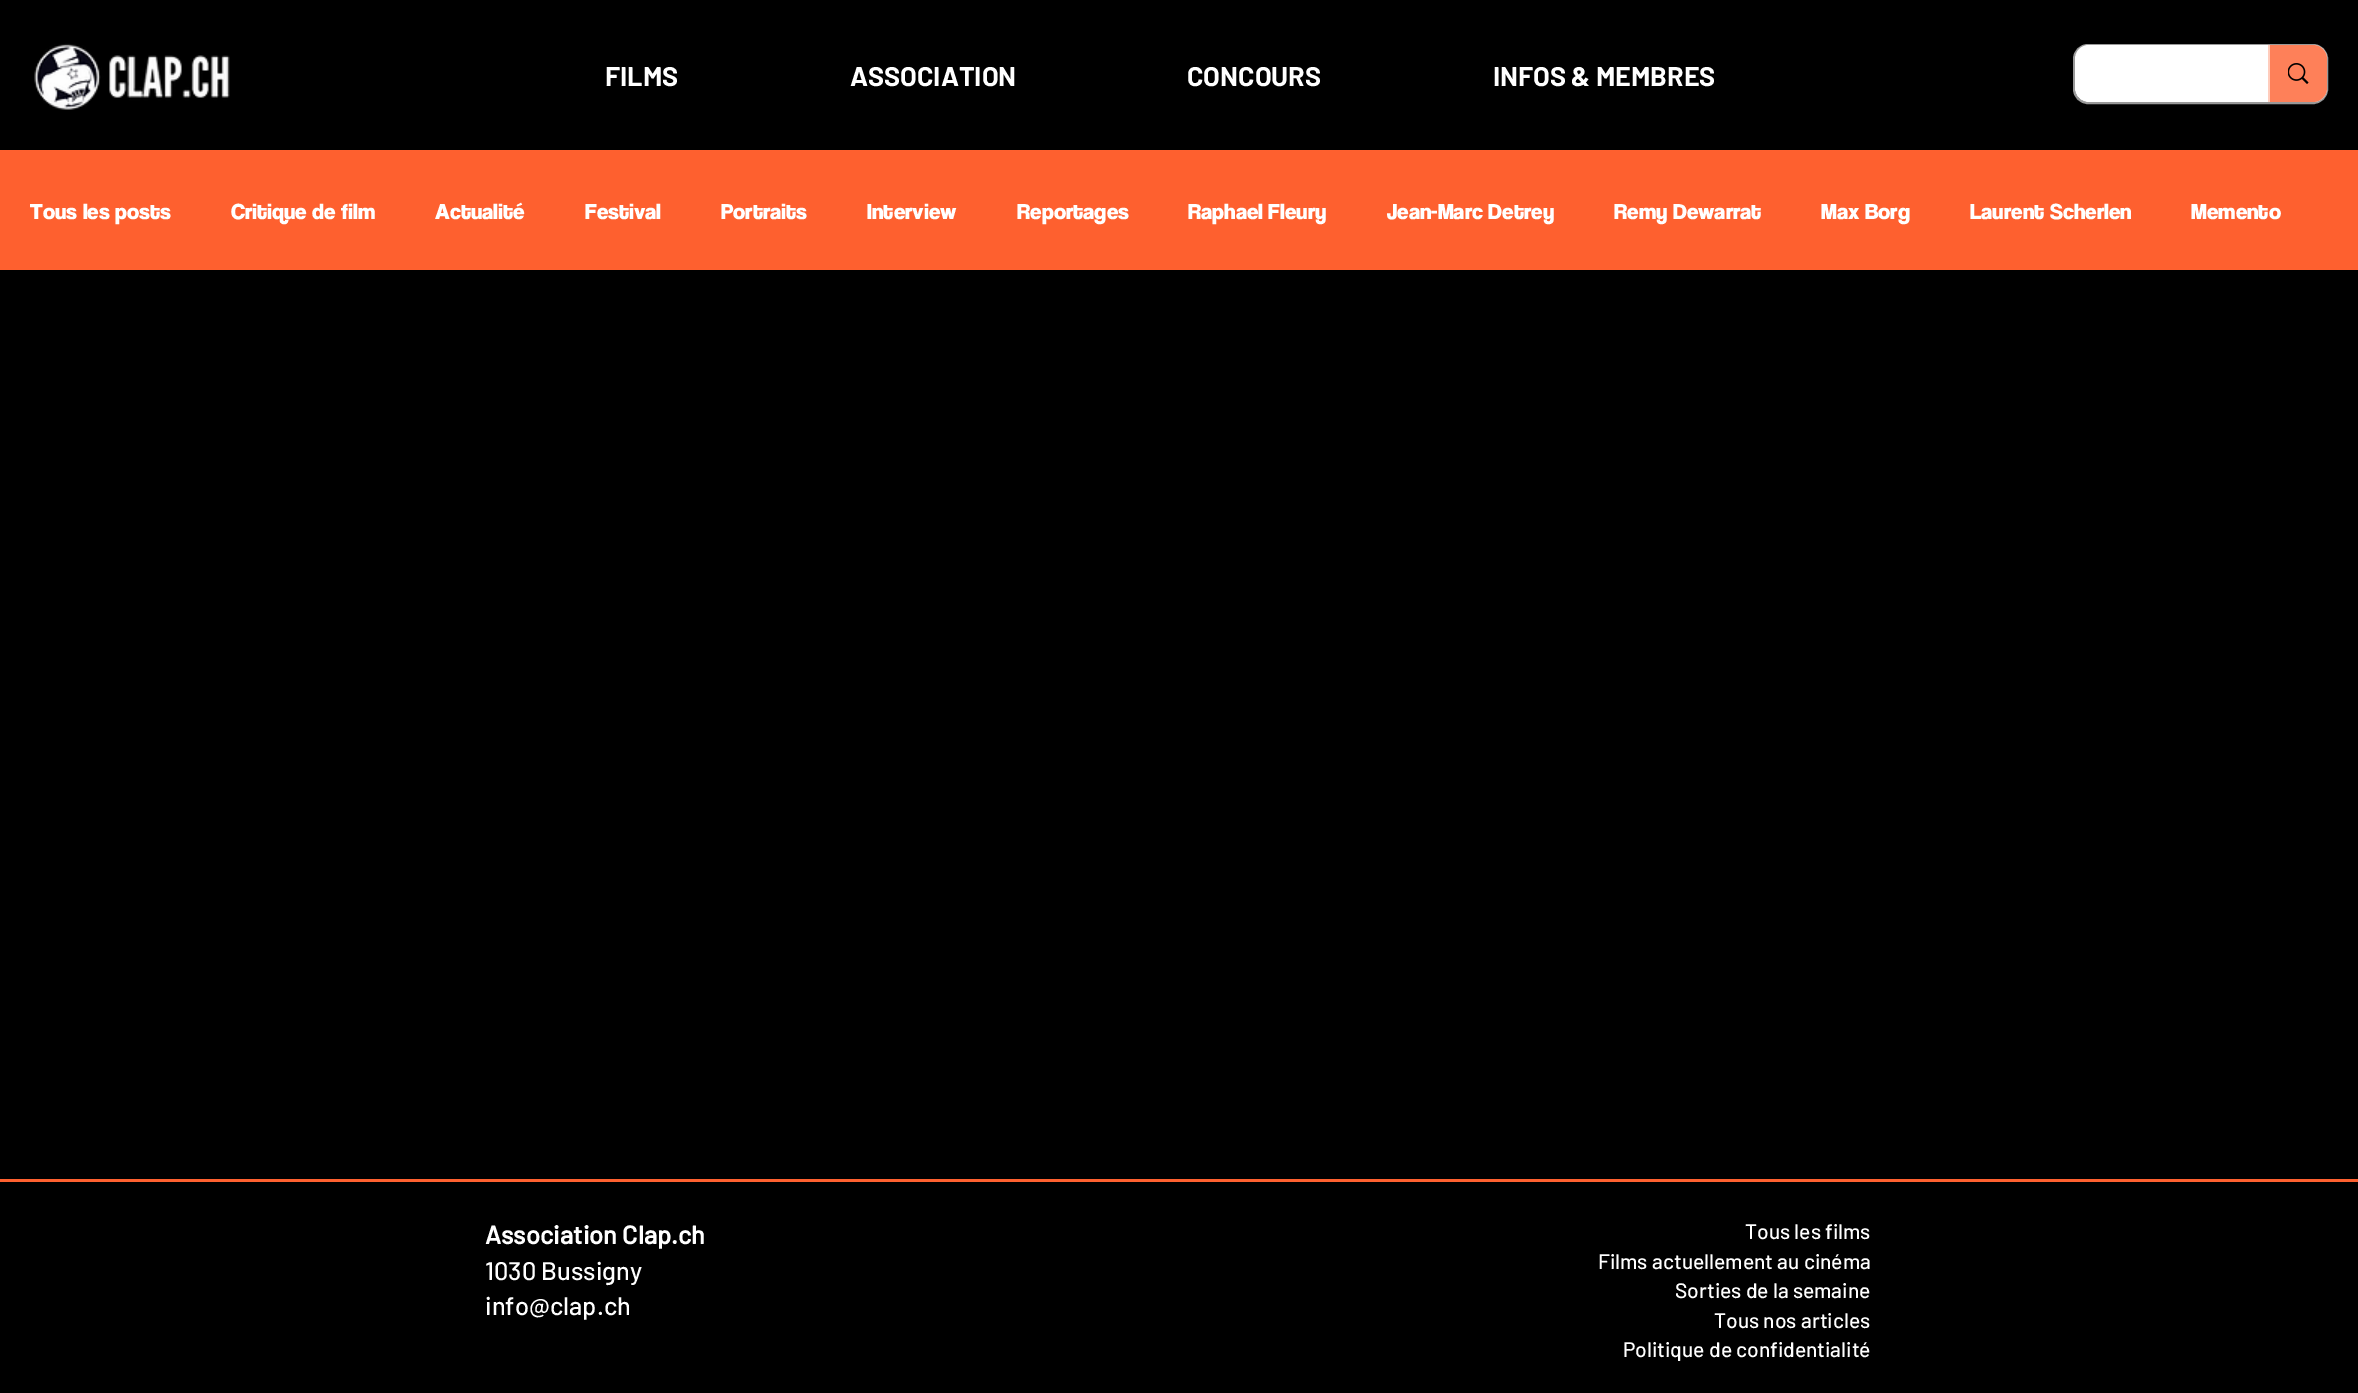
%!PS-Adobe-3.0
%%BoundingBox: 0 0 2358 1393
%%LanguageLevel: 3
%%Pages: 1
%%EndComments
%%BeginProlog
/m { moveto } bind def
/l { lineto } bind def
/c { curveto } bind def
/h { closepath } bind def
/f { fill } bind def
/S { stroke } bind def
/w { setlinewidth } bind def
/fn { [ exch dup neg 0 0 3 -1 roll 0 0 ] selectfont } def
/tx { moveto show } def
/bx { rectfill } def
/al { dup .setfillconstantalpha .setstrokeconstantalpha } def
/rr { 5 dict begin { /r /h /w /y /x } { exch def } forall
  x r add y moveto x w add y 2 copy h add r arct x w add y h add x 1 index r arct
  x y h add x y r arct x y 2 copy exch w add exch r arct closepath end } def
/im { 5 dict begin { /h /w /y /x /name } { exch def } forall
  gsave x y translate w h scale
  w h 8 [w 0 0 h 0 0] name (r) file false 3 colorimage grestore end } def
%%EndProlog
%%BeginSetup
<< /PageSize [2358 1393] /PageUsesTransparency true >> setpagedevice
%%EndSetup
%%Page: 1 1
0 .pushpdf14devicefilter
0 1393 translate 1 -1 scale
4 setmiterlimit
0 setgray
0 0 2358 1393 bx
(image0.raw) 34 43 196 67 im
/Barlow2-Bold 27 fn
1 setgray
(FILMS) 605 86 tx
(ASSOCIATION) 850 86 tx
(CONCOURS) 1187 86 tx
(INFOS & MEMBRES) 1493 86 tx
0.6 setgray
2 w
2074 45 253 58 14 rr S
1 setgray
2075 45 252 57 14 rr f
0.8 al
0.996 0.376 0.184 setrgbcolor
2268 45 m 2313 45 l 2320.5 45 2327 51.5 2327 59 c 2327 88 l 2327 95.5 2320.5 102 2313 102 c 2268 102 l h f
1 al
1 0.8 0.737 setrgbcolor
2268 45 2 57 bx
(image1.raw) 2288 63 21 21 im
0.996 0.376 0.184 setrgbcolor
0 150 2358 120 bx
/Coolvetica-Regular 22.5 fn
1 setgray
(Tous les posts) 30 219 tx
(Critique de film) 231 219 tx
(Actualité) 435 219 tx
(Festival) 585 219 tx
(Portraits) 721 219 tx
(Interview) 867 219 tx
(Reportages) 1017 219 tx
(Raphael Fleury) 1188 219 tx
(Jean-Marc Detrey) 1387 219 tx
(Remy Dewarrat) 1614 219 tx
(Max Borg) 1821 219 tx
(Laurent Scherlen) 1970 219 tx
(Memento) 2191 219 tx
0.996 0.376 0.184 setrgbcolor
0 1179 2358 3 bx
/Barlow-Bold 25.5 fn
1 setgray
(Association Clap.ch) 485 1244 tx
/Barlow-Medium 25.5 fn
(1030 Bussigny) 485 1280 tx
(info@clap.ch) 485 1315 tx
/Barlow-Medium 21 fn
(Tous les films) 1745 1239 tx
(Films actuellement au cinéma) 1598 1269 tx
(Sorties de la semaine) 1675 1298 tx
(Tous nos articles) 1714 1328 tx
(Politique de confidentialité) 1623 1357 tx
.poppdf14devicefilter showpage
%%EOF
